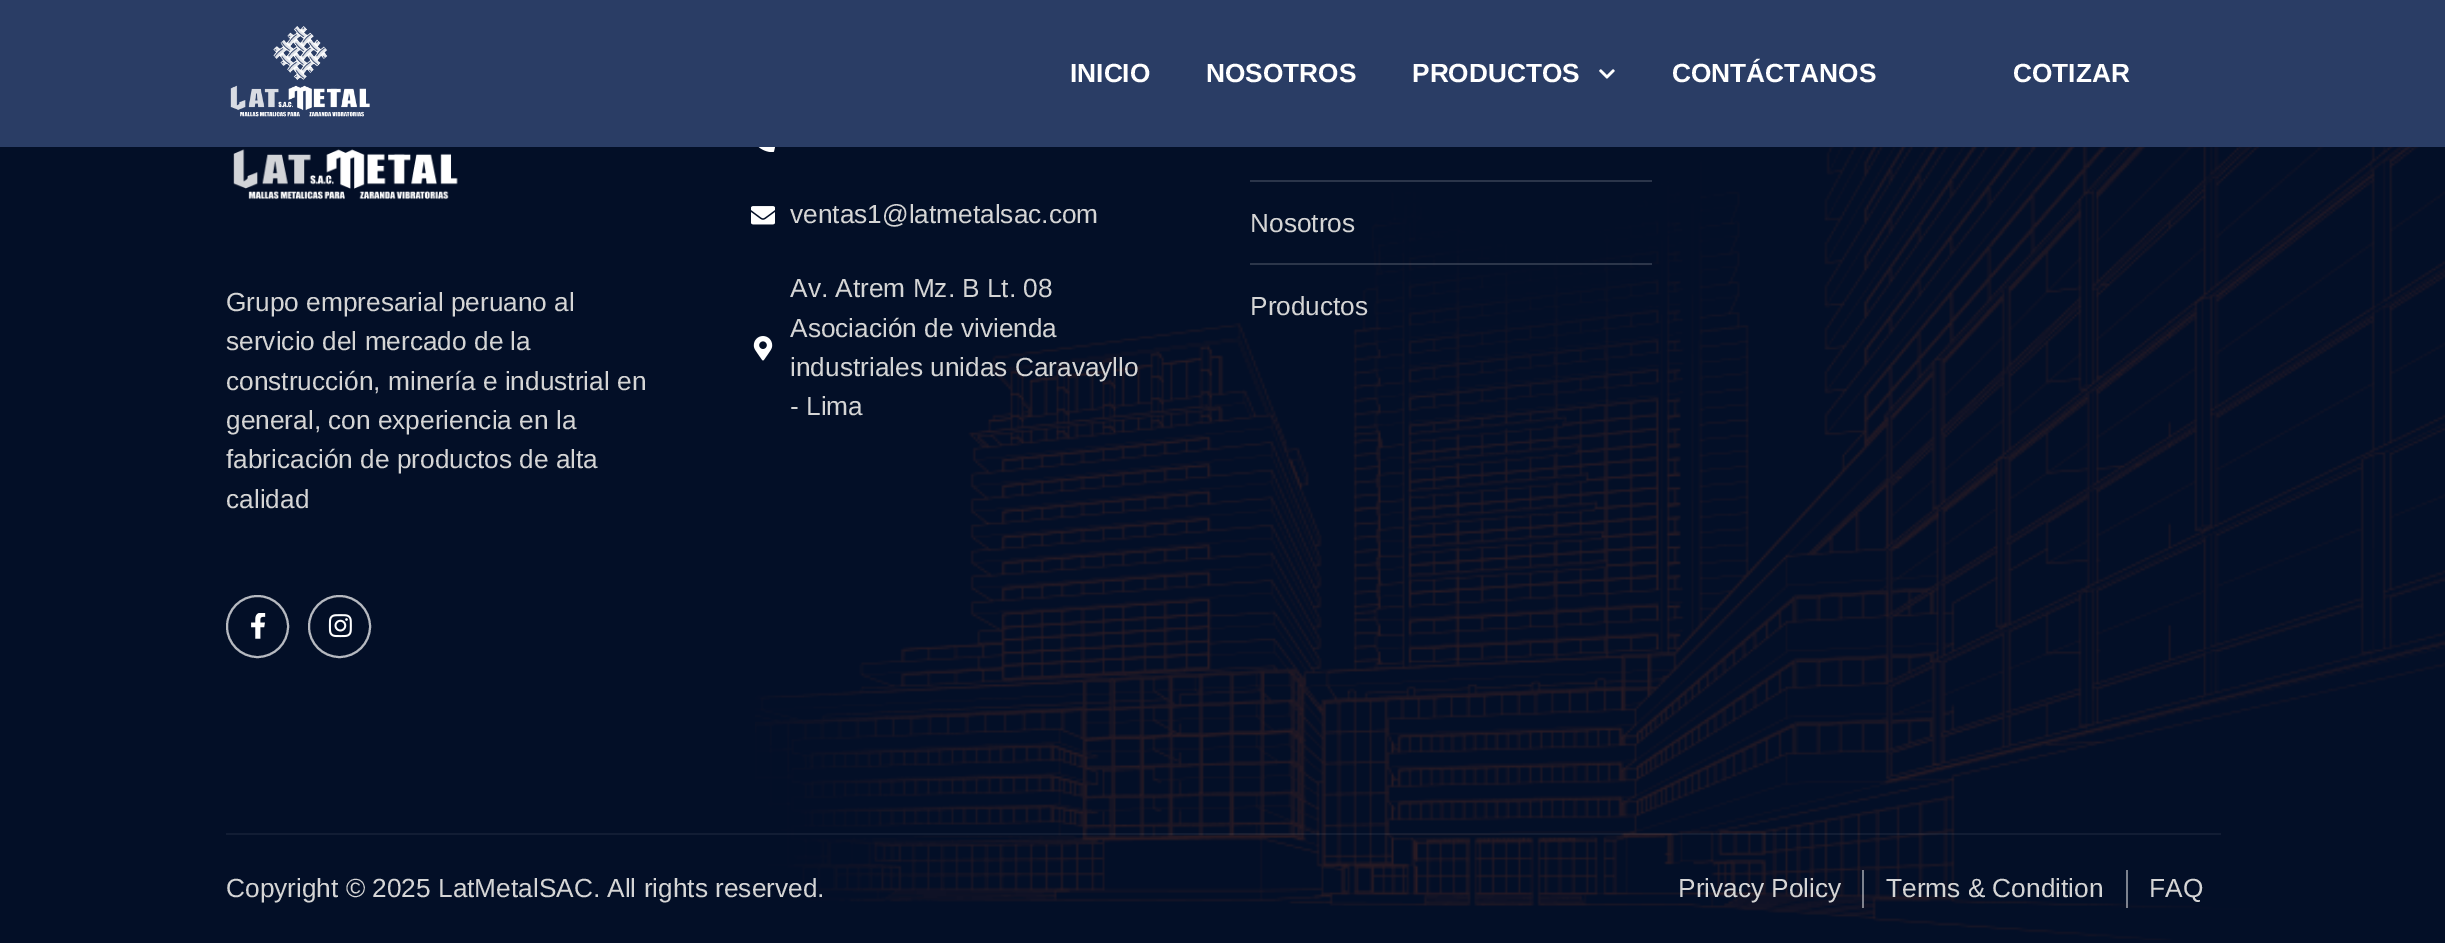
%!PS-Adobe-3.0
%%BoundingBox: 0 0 2445 943
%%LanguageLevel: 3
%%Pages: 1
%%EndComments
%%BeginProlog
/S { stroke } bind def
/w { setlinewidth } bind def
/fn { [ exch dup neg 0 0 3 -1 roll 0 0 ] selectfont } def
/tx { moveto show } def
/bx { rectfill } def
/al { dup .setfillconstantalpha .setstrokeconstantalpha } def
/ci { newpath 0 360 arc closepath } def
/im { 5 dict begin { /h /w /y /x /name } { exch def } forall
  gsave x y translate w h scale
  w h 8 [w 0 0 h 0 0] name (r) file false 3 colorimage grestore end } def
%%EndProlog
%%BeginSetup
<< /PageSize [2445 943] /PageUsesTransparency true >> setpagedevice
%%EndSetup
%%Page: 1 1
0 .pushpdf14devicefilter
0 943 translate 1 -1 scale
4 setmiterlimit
0.012 0.059 0.153 setrgbcolor
0 0 2445 943 bx
0.165 0.239 0.396 setrgbcolor
0 0 2445 147 bx
(image0.raw) 230 26 140 91 im
/LiberationSans-Bold 26.25 fn
1 setgray
(INICIO) 1070 82 tx
(NOSOTROS) 1206 82 tx
(PRODUCTOS) 1412 82 tx
(image1.raw) 1599 69 16 10 im
(CONTÁCTANOS) 1672 82 tx
(COTIZAR) 2013 82 tx
(image2.raw) 755 147 1690 793 im
(image3.raw) 758 147 17 5 im
(image4.raw) 751 206 24 19 im
/LiberationSans-Regular 26.25 fn
0.835 setgray
(ventas1@latmetalsac.com) 790 223 tx
(image5.raw) 753 336 20 25 im
(Av. Atrem Mz. B Lt. 08) 790 297 tx
(Asociación de vivienda) 790 337 tx
(industriales unidas Caravayllo) 790 376 tx
(- Lima) 790 415 tx
0.169 0.208 0.29 setrgbcolor
1250 180 402 2 bx
0.835 setgray
(Nosotros) 1250 232 tx
0.16 al
1 setgray
1250 263 402 2 bx
1 al
0.835 setgray
(Productos) 1250 315 tx
(image6.raw) 233 149 225 51 im
(Grupo empresarial peruano al) 226 311 tx
(servicio del mercado de la) 226 350 tx
(construcción, minería e industrial en) 226 390 tx
(general, con experiencia en la) 226 429 tx
(fabricación de productos de alta) 226 468 tx
(calidad) 226 508 tx
0.714 0.725 0.753 setrgbcolor
2 w
257.5 626.5 30.5 ci S
(image7.raw) 251 613 15 26 im
339.5 626.5 30.5 ci S
(image8.raw) 328 614 24 24 im
0.06 al
1 setgray
226 833 1995 2 bx
1 al
0.835 setgray
(Copyright © 2025 LatMetalSAC. All rights reserved.) 226 897 tx
(Privacy Policy) 1678 897 tx
0.48 al
1 setgray
1862 870 2 38 bx
1 al
0.835 setgray
(Terms & Condition) 1886 897 tx
0.48 al
1 setgray
2126 870 2 38 bx
1 al
0.835 setgray
(FAQ) 2149 897 tx
.poppdf14devicefilter showpage
%%EOF
